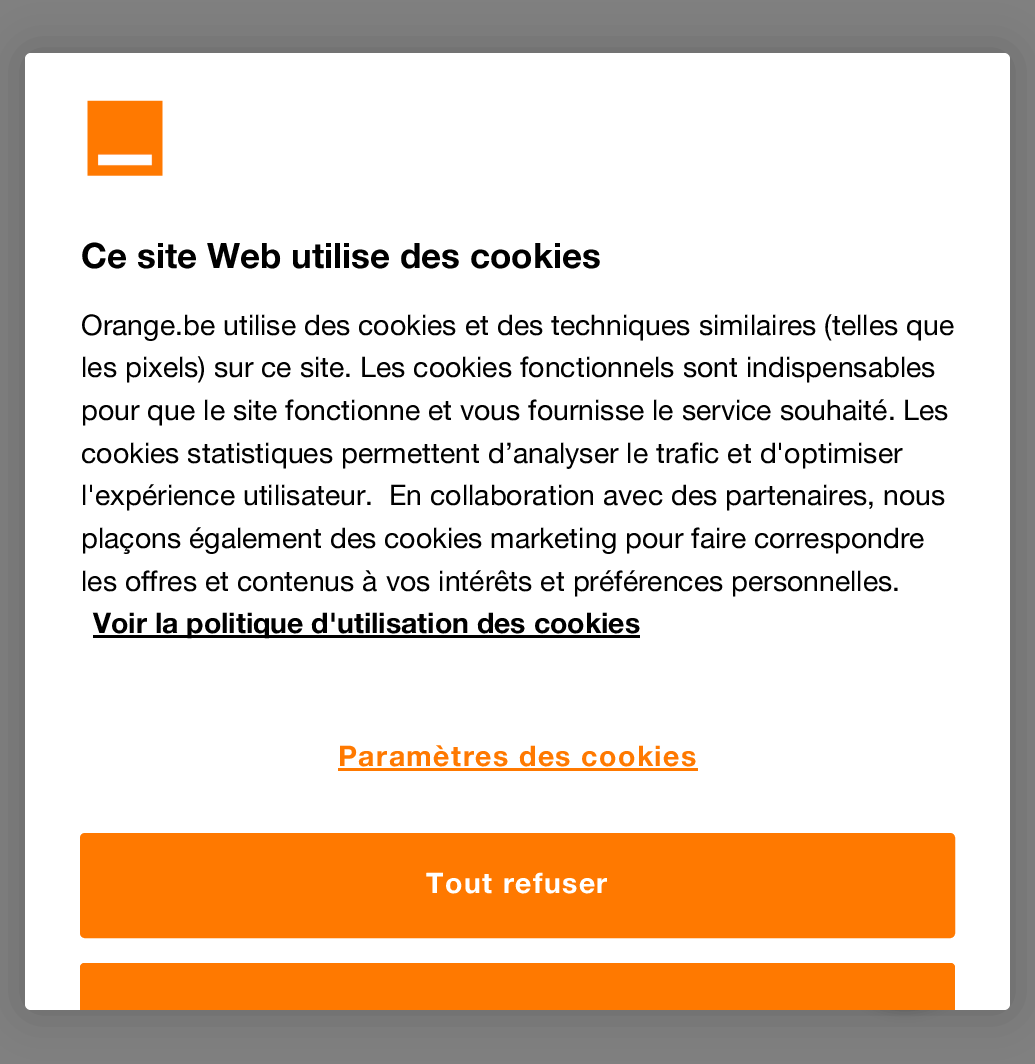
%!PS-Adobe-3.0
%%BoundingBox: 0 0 1035 1064
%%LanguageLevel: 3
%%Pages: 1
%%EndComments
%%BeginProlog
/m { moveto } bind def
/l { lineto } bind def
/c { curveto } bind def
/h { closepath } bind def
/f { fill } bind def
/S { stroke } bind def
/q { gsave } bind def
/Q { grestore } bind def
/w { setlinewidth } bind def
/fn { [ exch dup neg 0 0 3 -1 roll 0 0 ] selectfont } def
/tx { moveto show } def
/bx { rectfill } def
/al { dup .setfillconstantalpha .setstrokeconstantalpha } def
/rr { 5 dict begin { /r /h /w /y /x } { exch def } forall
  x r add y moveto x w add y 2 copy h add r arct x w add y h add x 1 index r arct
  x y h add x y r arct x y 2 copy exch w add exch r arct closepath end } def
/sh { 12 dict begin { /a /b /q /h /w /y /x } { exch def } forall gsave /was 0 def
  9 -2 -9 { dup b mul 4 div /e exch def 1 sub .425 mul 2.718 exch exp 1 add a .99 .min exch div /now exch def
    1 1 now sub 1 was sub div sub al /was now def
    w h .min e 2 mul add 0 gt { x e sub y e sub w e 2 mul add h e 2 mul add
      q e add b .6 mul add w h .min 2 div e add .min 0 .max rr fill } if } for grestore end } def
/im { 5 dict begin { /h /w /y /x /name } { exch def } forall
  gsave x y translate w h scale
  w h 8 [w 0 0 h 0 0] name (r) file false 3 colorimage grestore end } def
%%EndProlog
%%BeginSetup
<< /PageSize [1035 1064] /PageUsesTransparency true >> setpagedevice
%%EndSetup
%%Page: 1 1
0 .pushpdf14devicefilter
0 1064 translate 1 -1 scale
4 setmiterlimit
0.502 setgray
0 0 1035 1064 bx
0 setgray
25 53 985 957 6 22.5 0.2 sh
835 870 140 140 70 6 0.2 sh
1 setgray
25 53 985 957 6 rr f
(image0.raw) 87 100 76 76 im
/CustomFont-Bold 35 fn
0 setgray
(Ce site Web utilise des cookies) 81 268 tx
/CustomFont-Regular 28.45 fn
(Orange.be utilise des cookies et des techniques similaires \(telles que) 81 335 tx
(les pixels\) sur ce site. Les cookies fonctionnels sont indispensables) 81 377 tx
(pour que le site fonctionne et vous fournisse le service souhaité.) 81 420 tx
(Les) 903 420 tx
(cookies statistiques permettent d’analyser le trafic et d'optimiser) 81 463 tx
(l'expérience utilisateur.) 81 505 tx
(En collaboration avec des partenaires, nous) 389 505 tx
(plaçons également des cookies marketing pour faire correspondre) 81 548 tx
(les offres et contenus à vos intérêts et préférences personnelles.) 81 591 tx
93 635 547 3 bx
/CustomFont-Bold 28.45 fn
(Voir la politique d'utilisation des cookies) 93 633 tx
1 0.475 0 setrgbcolor
338 766 m 1.4 0 (Paramètres des cookies) ashow
338 768 360 3 bx
81.5 834.5 872 102 3.5 rr q f Q
3 w
S
1 setgray
426 893 m 1.4 0 (Tout refuser) ashow
1 0.475 0 setrgbcolor
85 963 m 950 963 l 953 963 955 965 955 968 c 955 1010 l 80 1010 l 80 968 l 80 965 82 963 85 963 c h f
85 963 m 82 963 80 965 80 968 c 80 1010 l 83 1010 l 83 968 l 83 967 84 966 85 966 c 950 966 l 951 966 952 967 952 968 c 952 1010 l 955 1010 l 955 968 l 955 965 953 963 950 963 c h f
.poppdf14devicefilter showpage
%%EOF
